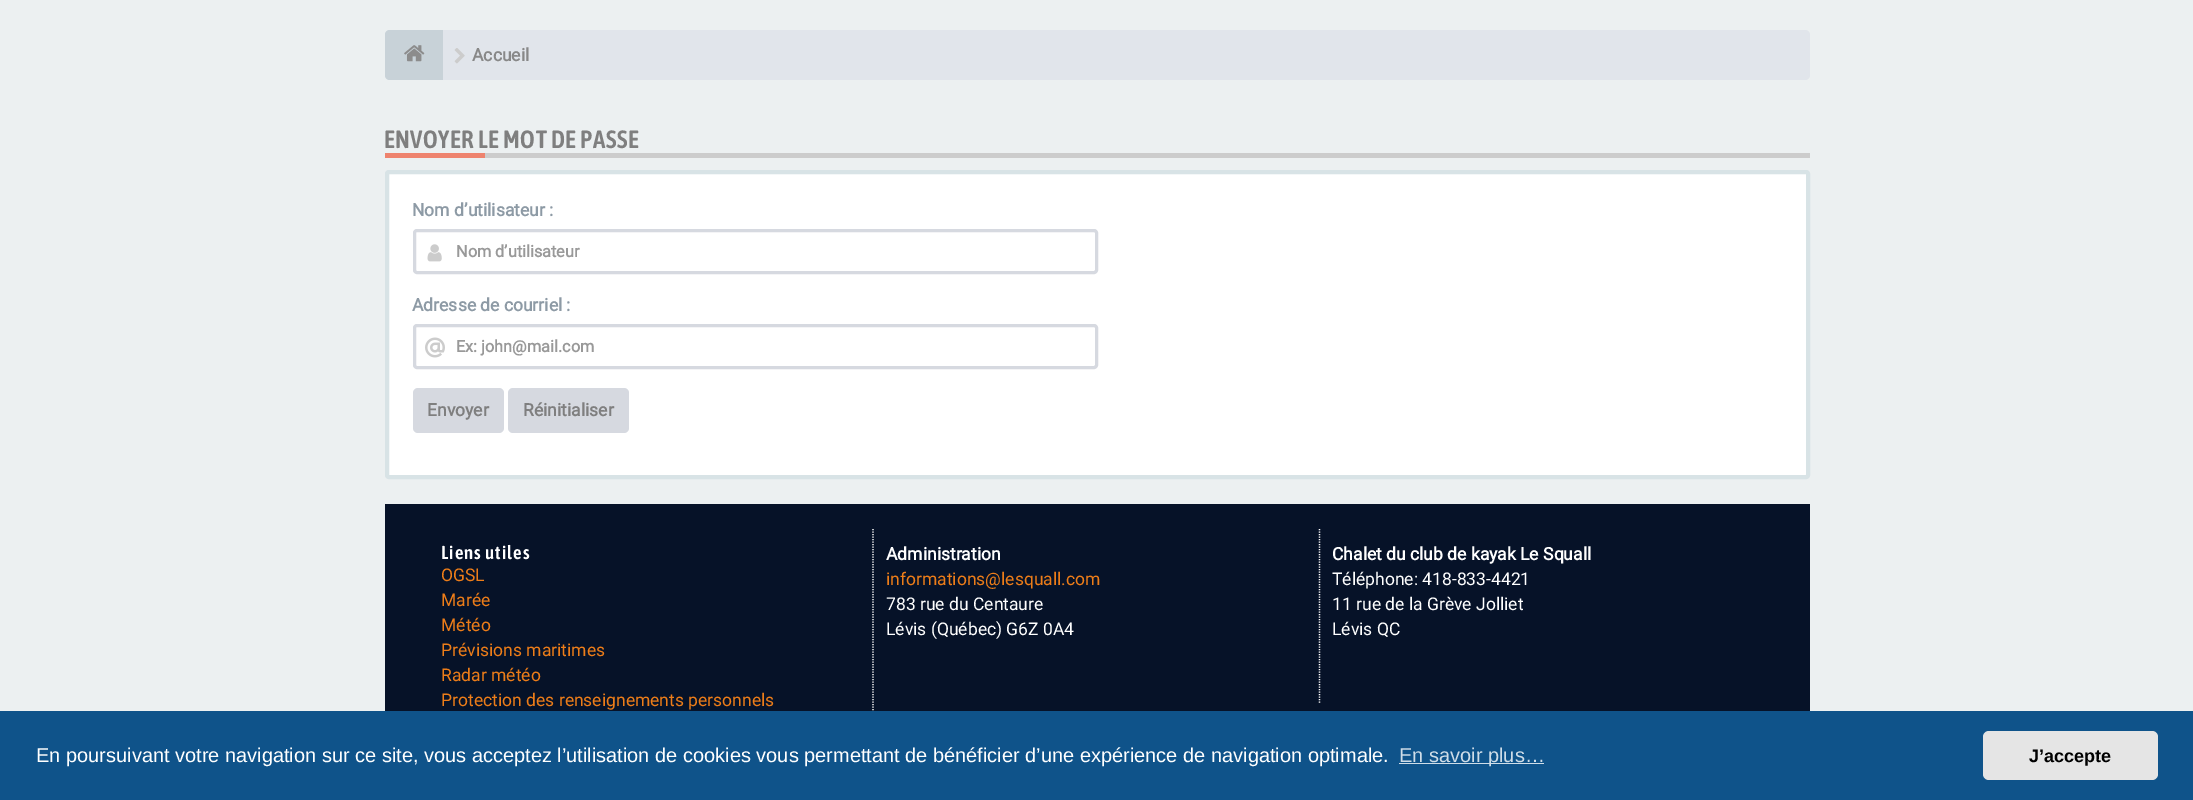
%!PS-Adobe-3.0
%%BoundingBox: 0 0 2193 800
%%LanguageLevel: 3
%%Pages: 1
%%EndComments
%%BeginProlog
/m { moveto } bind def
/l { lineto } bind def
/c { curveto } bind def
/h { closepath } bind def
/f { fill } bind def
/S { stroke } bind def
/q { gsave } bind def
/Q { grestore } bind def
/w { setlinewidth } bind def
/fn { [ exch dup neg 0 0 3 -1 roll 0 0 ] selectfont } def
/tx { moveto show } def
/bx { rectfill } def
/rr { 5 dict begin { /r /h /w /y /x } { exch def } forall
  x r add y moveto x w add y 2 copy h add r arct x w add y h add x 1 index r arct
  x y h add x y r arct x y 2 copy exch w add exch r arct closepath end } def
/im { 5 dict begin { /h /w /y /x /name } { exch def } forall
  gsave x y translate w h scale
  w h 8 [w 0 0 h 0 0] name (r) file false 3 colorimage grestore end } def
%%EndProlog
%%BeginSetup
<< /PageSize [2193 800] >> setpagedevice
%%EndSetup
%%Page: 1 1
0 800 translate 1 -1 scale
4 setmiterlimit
0.925 0.941 0.945 setrgbcolor
0 0 2193 800 bx
0.882 0.898 0.922 setrgbcolor
385 30 1425 50 5 rr f
0.784 0.824 0.847 setrgbcolor
390 30 m 443 30 l 443 80 l 390 80 l 387 80 385 78 385 75 c 385 35 l 385 32 387 30 390 30 c h f
(image0.raw) 404 45 21 17 im
(image1.raw) 454 48 11 16 im
/Roboto-Bold 17.5 fn
0.533 setgray
(Accueil) 472 61 tx
0.8 setgray
485 153 1325 5 bx
/AsapCondensed-SemiBold 25 fn
0.498 setgray
384 148 m 0.5 0 (ENVOYER LE MOT DE PASSE) ashow
0.933 0.514 0.431 setrgbcolor
385 153 100 5 bx
1 setgray
387 172 1421 305 2 rr q f Q
0.847 0.89 0.902 setrgbcolor
4 w
S
/Roboto-Bold 17.5 fn
0.553 0.604 0.647 setrgbcolor
(Nom d’utilisateur :) 412 216 tx
0.839 0.851 0.878 setrgbcolor
3 w
414.5 230.5 682 42 2.5 rr S
(image2.raw) 427 244 15 18 im
/Roboto-Bold 16.25 fn
0.6 setgray
(Nom d’utilisateur) 456 257 tx
/Roboto-Bold 17.5 fn
0.553 0.604 0.647 setrgbcolor
(Adresse de courriel :) 412 311 tx
0.839 0.851 0.878 setrgbcolor
414.5 325.5 682 42 2.5 rr S
(image3.raw) 425 337 20 21 im
/Roboto-Bold 16.25 fn
0.6 setgray
(Ex: john@mail.com) 456 352 tx
0.839 0.851 0.878 setrgbcolor
413 388 91 45 5 rr f
/Roboto-Bold 17.5 fn
0.498 setgray
(Envoyer) 427 416 tx
0.839 0.851 0.878 setrgbcolor
508 388 121 45 5 rr f
0.498 setgray
(Réinitialiser) 523 416 tx
0.024 0.071 0.157 setrgbcolor
385 504 1425 207 bx
1 setgray
1.2 w
[1.25 1.25] 0 setdash
873 529 m 873 737.5 l S
/AsapCondensed-SemiBold 18.75 fn
441 559 m 1 0 (Liens utiles) ashow
/Roboto-Regular 17.5 fn
0.929 0.49 0.098 setrgbcolor
(OGSL) 441 581 tx
(Marée) 441 606 tx
(Météo) 441 631 tx
(Prévisions maritimes) 441 656 tx
(Radar météo) 441 681 tx
(Protection des renseignements personnels) 441 706 tx
1 setgray
1319.5 529 m 1319.5 704 l S
/Roboto-Bold 17.5 fn
(Administration) 886 560 tx
/Roboto-Regular 17.5 fn
0.929 0.49 0.098 setrgbcolor
(informations@lesquall.com) 886 585 tx
1 setgray
(783 rue du Centaure) 886 610 tx
(Lévis \(Québec\) G6Z 0A4) 886 635 tx
/Roboto-Bold 17.5 fn
(Chalet du club de kayak Le Squall) 1332 560 tx
/Roboto-Regular 17.5 fn
(Téléphone: 418-833-4421) 1332 585 tx
(11 rue de la Grève Jolliet) 1332 610 tx
(Lévis QC) 1332 635 tx
0.059 0.325 0.541 setrgbcolor
0 711 2193 89 bx
/LiberationSans-Regular 20 fn
1 setgray
(En poursuivant votre navigation sur ce site, vous acceptez l’utilisation de cookies vous permettant de bénéficier d’une expérience de navigation optimale.) 36 762 tx
0.812 0.867 0.91 setrgbcolor
1399 763 145 1 bx
(En savoir plus…) 1399 762 tx
0.898 setgray
1983 731 175 49 6 rr f
/LiberationSans-Bold 18 fn
0 setgray
(J’accepte) 2029 762 tx
showpage
%%EOF
